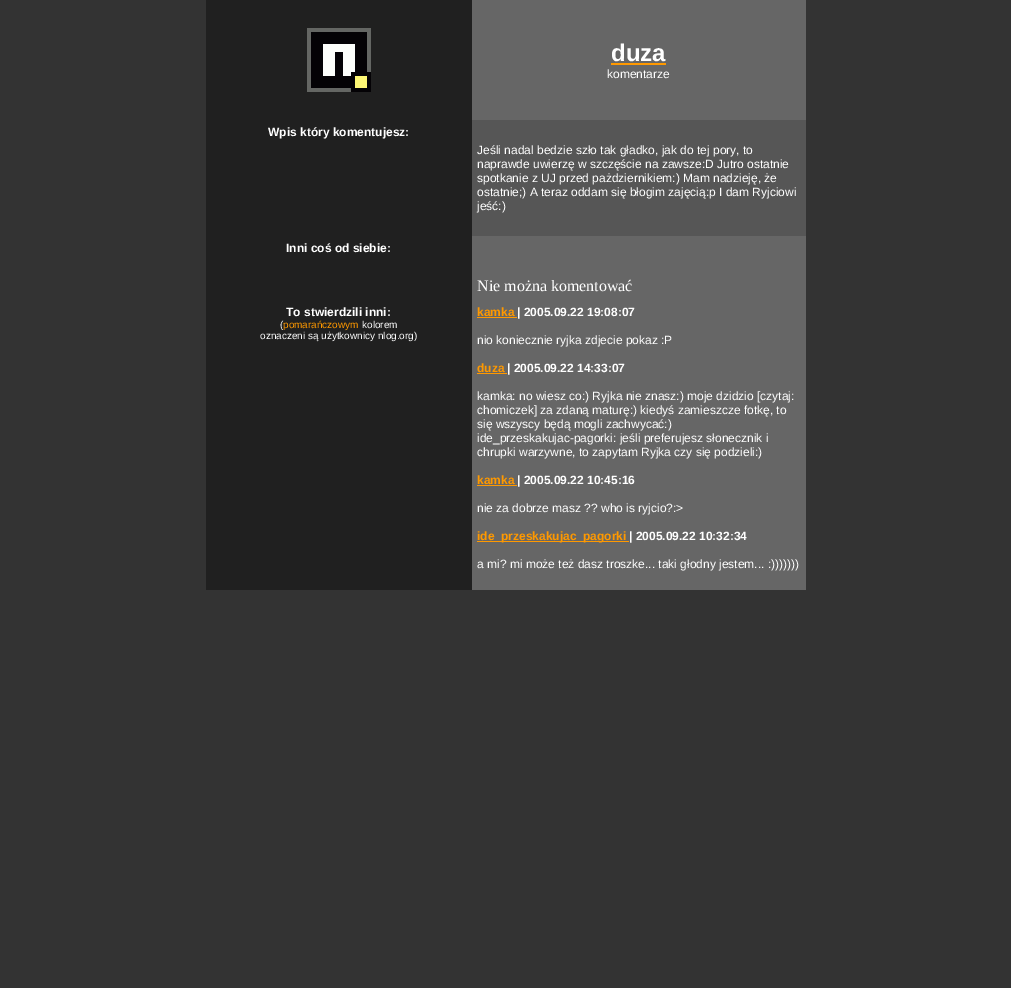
%!PS-Adobe-3.0
%%BoundingBox: 0 0 1011 988
%%LanguageLevel: 3
%%Pages: 1
%%EndComments
%%BeginProlog
/fn { [ exch dup neg 0 0 3 -1 roll 0 0 ] selectfont } def
/tx { moveto show } def
/bx { rectfill } def
/im { 5 dict begin { /h /w /y /x /name } { exch def } forall
  gsave x y translate w h scale
  w h 8 [w 0 0 h 0 0] name (r) file false 3 colorimage grestore end } def
%%EndProlog
%%BeginSetup
<< /PageSize [1011 988] >> setpagedevice
%%EndSetup
%%Page: 1 1
0 988 translate 1 -1 scale
4 setmiterlimit
0.2 setgray
0 0 1011 988 bx
0.125 setgray
206 0 266 590 bx
(image0.raw) 307 28 64 64 im
0.4 setgray
472 0 334 120 bx
/LiberationSans-Bold 24 fn
1 setgray
(duza) 611 61 tx
1 0.6 0 setrgbcolor
611 63 55 2 bx
/LiberationSans-Regular 12 fn
1 setgray
(komentarze) 607 78 tx
/LiberationSans-Bold 12 fn
(Wpis który komentujesz:) 268 136 tx
0.337 setgray
472 120 334 116 bx
/LiberationSans-Regular 12 fn
1 setgray
(Jeśli nadal bedzie szło tak gładko, jak do tej pory, to) 477 154 tx
(naprawde uwierzę w szczęście na zawsze:D Jutro ostatnie) 477 168 tx
(spotkanie z UJ przed pażdziernikiem:\) Mam nadzieję, że) 477 182 tx
(ostatnie;\) A teraz oddam się błogim zajęcią:p I dam Ryjciowi) 477 196 tx
(jeść:\)) 477 210 tx
/LiberationSans-Bold 12 fn
(Inni coś od siebie:) 286 252 tx
0.4 setgray
472 236 334 354 bx
/LiberationSerif-Regular 16 fn
1 setgray
(Nie można komentować) 477 291 tx
/LiberationSans-Bold 12 fn
(To stwierdzili inni:) 286 316 tx
/LiberationSans-Regular 10 fn
(\() 280 328 tx
1 0.6 0 setrgbcolor
(pomarańczowym) 283 328 tx
1 setgray
(kolorem) 362 328 tx
(oznaczeni są użytkownicy nlog.org\)) 260 339 tx
/LiberationSans-Bold 12 fn
1 0.6 0 setrgbcolor
(kamka) 477 316 tx
1 setgray
(| 2005.09.22 19:08:07) 517 316 tx
1 0.6 0 setrgbcolor
477 317 40 1 bx
/LiberationSans-Regular 12 fn
1 setgray
(nio koniecznie ryjka zdjecie pokaz :P) 477 344 tx
/LiberationSans-Bold 12 fn
1 0.6 0 setrgbcolor
(duza) 477 372 tx
1 setgray
(| 2005.09.22 14:33:07) 507 372 tx
1 0.6 0 setrgbcolor
477 373 30 1 bx
/LiberationSans-Regular 12 fn
1 setgray
(kamka: no wiesz co:\) Ryjka nie znasz:\) moje dzidzio [czytaj:) 477 400 tx
(chomiczek] za zdaną maturę:\) kiedyś zamieszcze fotkę, to) 477 414 tx
(się wszyscy będą mogli zachwycać:\)) 477 428 tx
(ide_przeskakujac-pagorki: jeśli preferujesz słonecznik i) 477 442 tx
(chrupki warzywne, to zapytam Ryjka czy się podzieli:\)) 477 456 tx
/LiberationSans-Bold 12 fn
1 0.6 0 setrgbcolor
(kamka) 477 484 tx
1 setgray
(| 2005.09.22 10:45:16) 517 484 tx
1 0.6 0 setrgbcolor
477 485 40 1 bx
/LiberationSans-Regular 12 fn
1 setgray
(nie za dobrze masz ?? who is ryjcio?:>) 477 512 tx
1 0.6 0 setrgbcolor
477 541 152 1 bx
/LiberationSans-Bold 12 fn
(ide_przeskakujac_pagorki) 477 540 tx
1 setgray
(| 2005.09.22 10:32:34) 629 540 tx
/LiberationSans-Regular 12 fn
(a mi? mi może też dasz troszke... taki głodny jestem... :\)\)\)\)\)\)\)) 477 568 tx
showpage
%%EOF
